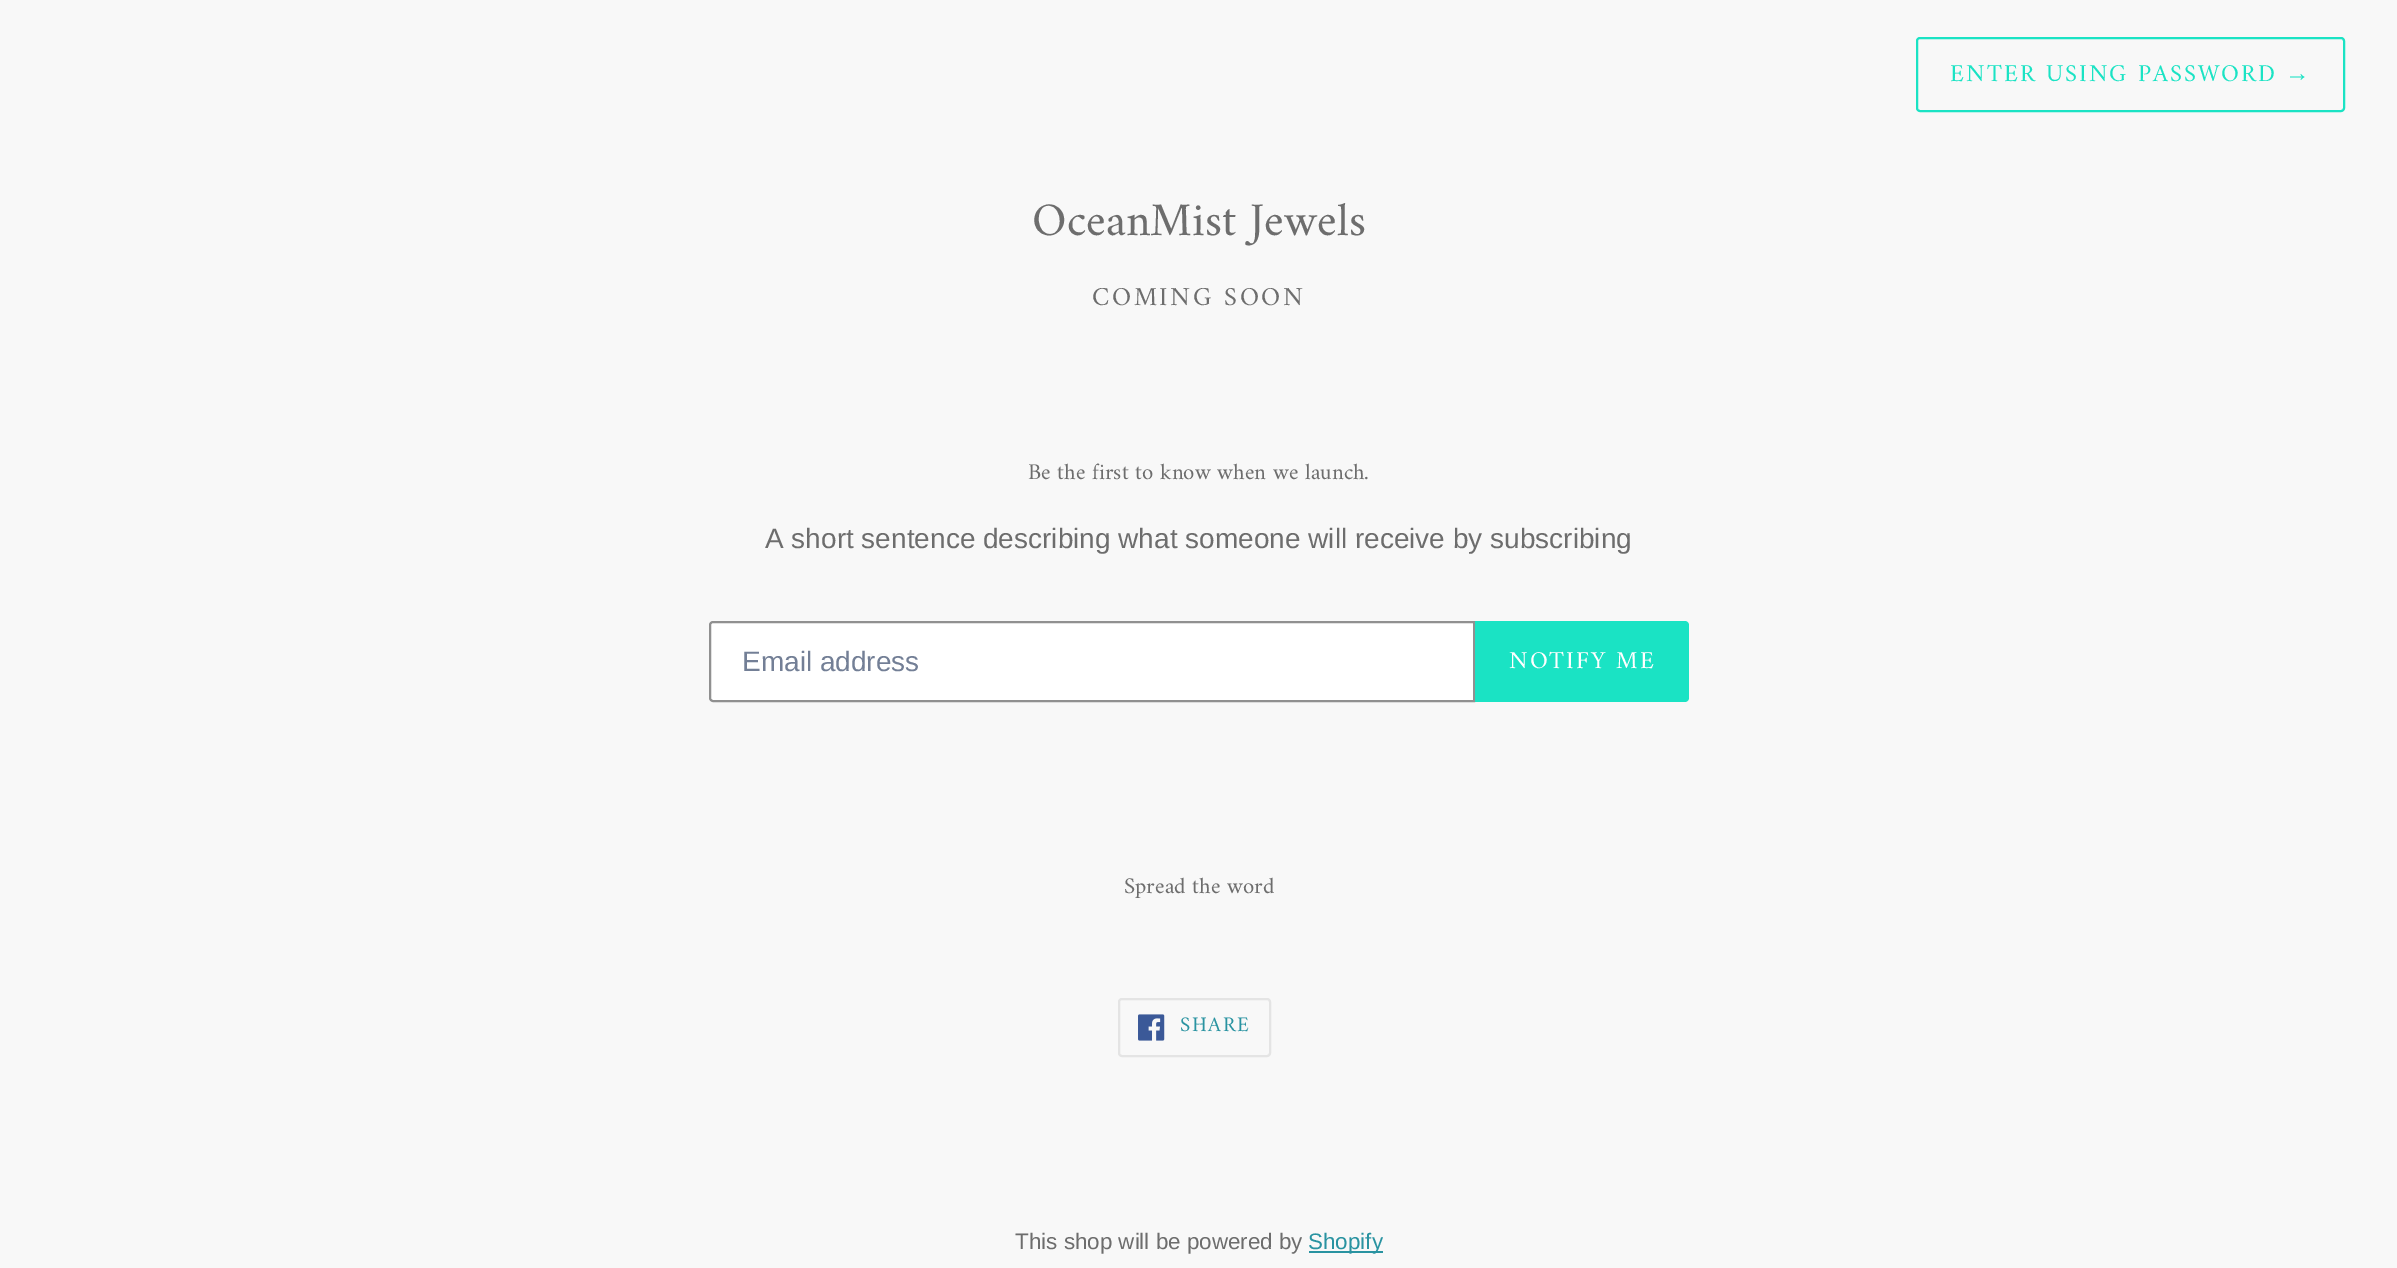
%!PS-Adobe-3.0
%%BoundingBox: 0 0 2397 1268
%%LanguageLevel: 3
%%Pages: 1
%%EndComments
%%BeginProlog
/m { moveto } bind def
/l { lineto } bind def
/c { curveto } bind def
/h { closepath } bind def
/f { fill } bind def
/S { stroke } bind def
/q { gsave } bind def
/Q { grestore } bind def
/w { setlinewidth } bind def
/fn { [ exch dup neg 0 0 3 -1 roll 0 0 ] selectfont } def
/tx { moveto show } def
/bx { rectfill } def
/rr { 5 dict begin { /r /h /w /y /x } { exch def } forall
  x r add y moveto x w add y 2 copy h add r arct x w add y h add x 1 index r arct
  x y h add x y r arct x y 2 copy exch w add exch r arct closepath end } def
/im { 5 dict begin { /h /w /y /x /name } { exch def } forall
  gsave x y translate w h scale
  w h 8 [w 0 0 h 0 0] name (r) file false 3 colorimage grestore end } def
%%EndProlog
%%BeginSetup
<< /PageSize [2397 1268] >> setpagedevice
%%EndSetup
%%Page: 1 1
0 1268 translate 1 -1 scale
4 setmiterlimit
0.973 setgray
0 0 2397 1268 bx
0.102 0.89 0.769 setrgbcolor
2 w
1917 38 427 73 3 rr S
/Amiri-Regular 24.5 fn
1950 81 m 2 0 (ENTER USING PASSWORD) ashow
/LiberationSerif-Regular 24.5 fn
2285 81 m 2 0 (→) ashow
/Amiri-Regular 47.25 fn
0.427 setgray
(OceanMist Jewels) 1032 235 tx
/Amiri-Regular 26.25 fn
1092 305 m 2.6 0 (COMING SOON) ashow
/Amiri-Regular 22.75 fn
(Be the first to know when we launch.) 1028 479 tx
/Arimo-Regular 28 fn
(A short sentence describing what someone will receive by subscribing) 765 548 tx
1 setgray
713 622 m 1474 622 l 1474 701 l 713 701 l 711.5 701 710 699.5 710 698 c 710 625 l 710 623.5 711.5 622 713 622 c h q f Q
0.565 setgray
S
0.451 0.498 0.588 setrgbcolor
(Email address) 742 671 tx
0.102 0.89 0.769 setrgbcolor
1475 621 m 1685 621 l 1687 621 1689 623 1689 625 c 1689 698 l 1689 700 1687 702 1685 702 c 1475 702 l h f
/Amiri-Regular 24.5 fn
1 setgray
1509 668 m 2 0 (NOTIFY ME) ashow
/Amiri-Regular 22.75 fn
0.427 setgray
(Spread the word) 1124 893 tx
0.894 setgray
1119 999 151 57 3 rr S
(image0.raw) 1138 1014 27 27 im
/Amiri-Regular 21 fn
0.161 0.576 0.631 setrgbcolor
1180 1031 m 1.5 0 (SHARE) ashow
/Arimo-Regular 22.4 fn
0.427 setgray
(This shop will be powered by) 1015 1249 tx
0.161 0.576 0.631 setrgbcolor
1309 1251 74 2 bx
(Shopify) 1308 1249 tx
showpage
%%EOF
